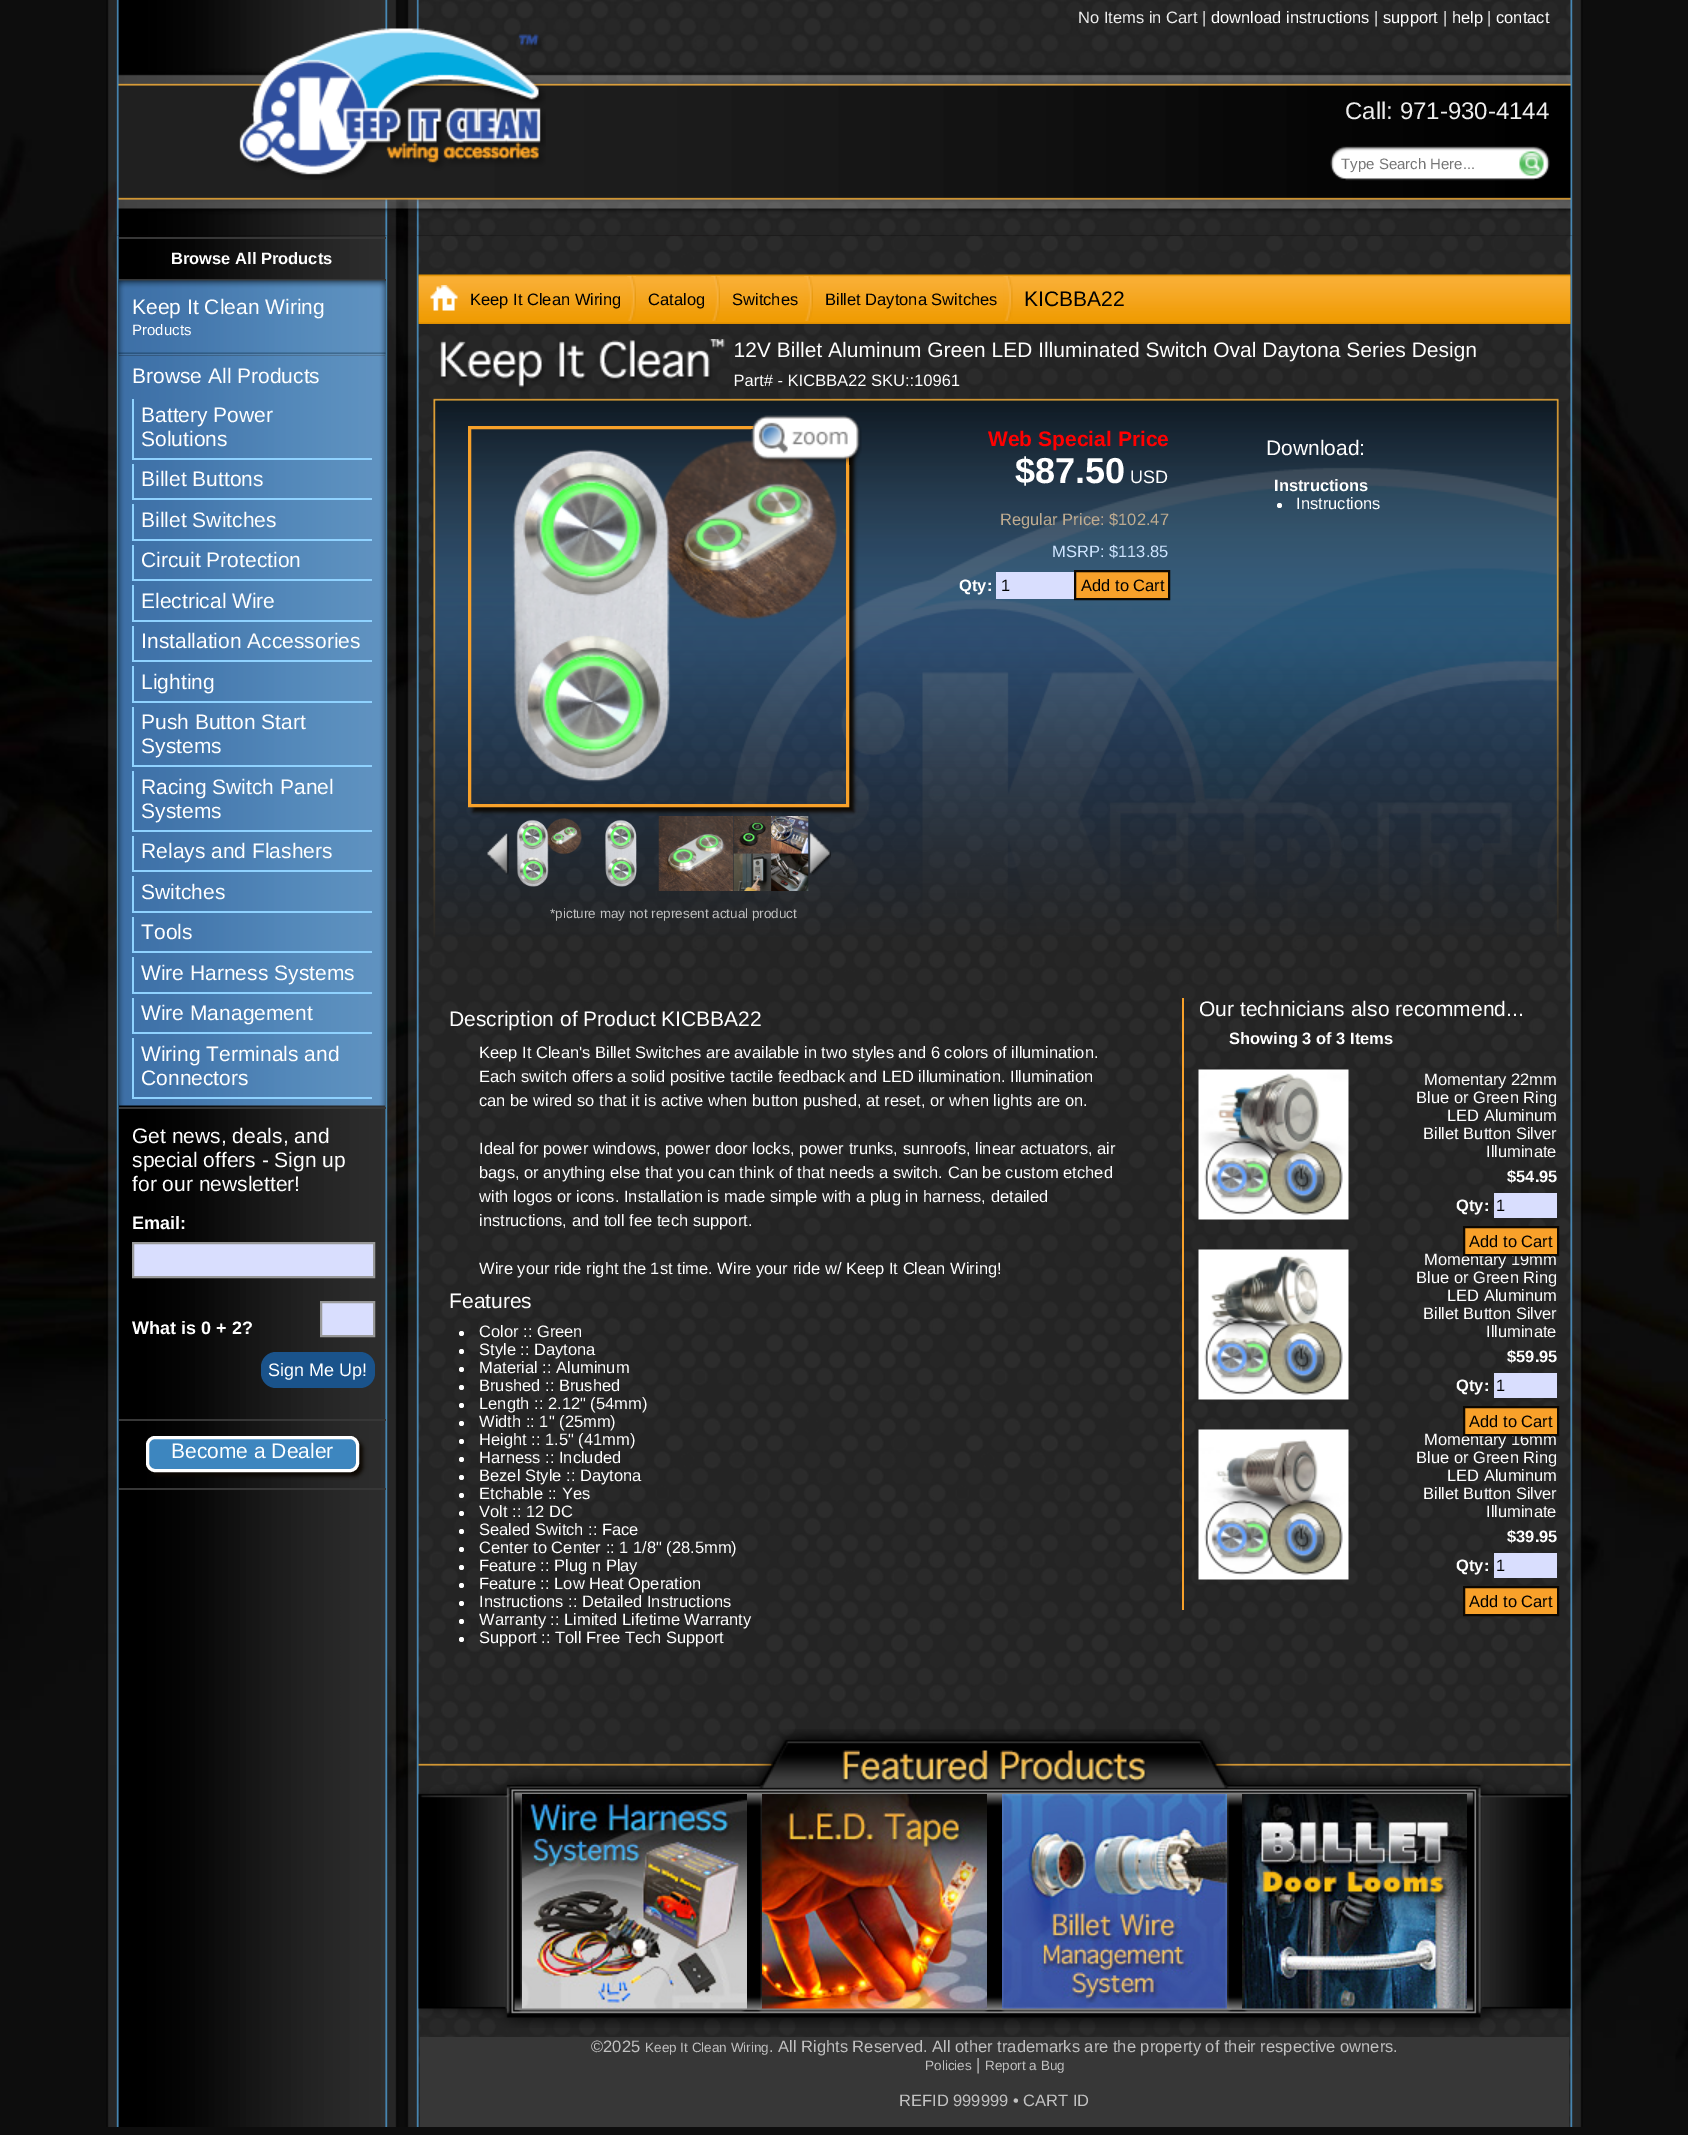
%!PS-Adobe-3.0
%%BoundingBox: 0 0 1688 2135
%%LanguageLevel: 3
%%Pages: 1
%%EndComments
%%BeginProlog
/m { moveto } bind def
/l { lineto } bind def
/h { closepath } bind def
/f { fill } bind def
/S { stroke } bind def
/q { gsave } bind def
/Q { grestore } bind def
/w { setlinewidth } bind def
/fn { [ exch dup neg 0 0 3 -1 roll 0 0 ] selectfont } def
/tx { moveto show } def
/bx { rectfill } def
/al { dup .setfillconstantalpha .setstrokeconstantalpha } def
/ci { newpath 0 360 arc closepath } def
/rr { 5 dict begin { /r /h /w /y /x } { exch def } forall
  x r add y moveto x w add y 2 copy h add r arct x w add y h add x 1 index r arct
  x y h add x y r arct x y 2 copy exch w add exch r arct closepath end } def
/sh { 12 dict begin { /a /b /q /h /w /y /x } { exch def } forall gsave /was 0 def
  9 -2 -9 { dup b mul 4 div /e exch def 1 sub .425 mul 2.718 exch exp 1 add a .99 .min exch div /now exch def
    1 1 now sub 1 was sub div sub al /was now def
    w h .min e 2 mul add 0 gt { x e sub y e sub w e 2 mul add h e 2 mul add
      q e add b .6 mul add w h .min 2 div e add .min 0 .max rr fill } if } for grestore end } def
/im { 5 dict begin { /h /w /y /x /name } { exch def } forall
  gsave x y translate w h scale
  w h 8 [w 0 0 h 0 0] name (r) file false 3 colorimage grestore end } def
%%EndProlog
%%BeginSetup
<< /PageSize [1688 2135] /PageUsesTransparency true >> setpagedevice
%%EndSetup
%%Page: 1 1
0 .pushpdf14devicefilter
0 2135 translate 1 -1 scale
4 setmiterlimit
1 setgray
0 0 1688 2135 bx
(image0.raw) 0 0 1688 2135 im
(image5.raw) 106 235 1477 1892 im
(image1.raw) 106 0 1477 236 im
/LiberationSans-Regular 16.5 fn
0.933 setgray
(No Items in Cart) 1078 23 tx
(|) 1202 23 tx
1 setgray
(download instructions) 1211 23 tx
0.933 setgray
(|) 1374 23 tx
1 setgray
(support) 1383 23 tx
0.933 setgray
(|) 1443 23 tx
1 setgray
(help) 1452 23 tx
0.933 setgray
(|) 1487 23 tx
1 setgray
(contact) 1496 23 tx
(image2.raw) 239 28 307 152 im
/LiberationSans-Regular 24 fn
0.933 setgray
(Call: 971-930-4144) 1345 119 tx
(image3.raw) 1330 146 220 35 im
/LiberationSans-Regular 15 fn
0.459 setgray
(Type Search Here...) 1341 169 tx
(image4.raw) 1519 151 25 25 im
0.216 setgray
119 237 267 2 bx
/LiberationSans-Bold 16.5 fn
1 setgray
(Browse All Products) 171 264 tx
0.216 setgray
119 279 267 2 bx
(image6.raw) 118 280 268 76 im
/LiberationSans-Regular 21 fn
1 setgray
(Keep It Clean Wiring) 132 314 tx
/LiberationSans-Regular 15 fn
(Products) 132 335 tx
(image7.raw) 118 355 268 751 im
/LiberationSans-Regular 21 fn
(Browse All Products) 132 383 tx
0.561 0.824 1 setrgbcolor
132 458 240 2 bx
132 399 2 60 bx
1 setgray
(Battery Power) 141 422 tx
(Solutions) 141 446 tx
0.561 0.824 1 setrgbcolor
132 498 240 2 bx
132 464 2 36 bx
1 setgray
(Billet Buttons) 141 486 tx
0.561 0.824 1 setrgbcolor
132 539 240 2 bx
132 504 2 36 bx
1 setgray
(Billet Switches) 141 527 tx
0.561 0.824 1 setrgbcolor
132 579 240 2 bx
132 545 2 36 bx
1 setgray
(Circuit Protection) 141 567 tx
0.561 0.824 1 setrgbcolor
132 620 240 2 bx
132 585 2 36 bx
1 setgray
(Electrical Wire) 141 608 tx
0.561 0.824 1 setrgbcolor
132 660 240 2 bx
132 626 2 36 bx
1 setgray
(Installation Accessories) 141 648 tx
0.561 0.824 1 setrgbcolor
132 701 240 2 bx
132 666 2 36 bx
1 setgray
(Lighting) 141 689 tx
0.561 0.824 1 setrgbcolor
132 765 240 2 bx
132 707 2 60 bx
1 setgray
(Push Button Start) 141 729 tx
(Systems) 141 753 tx
0.561 0.824 1 setrgbcolor
132 830 240 2 bx
132 771 2 60 bx
1 setgray
(Racing Switch Panel) 141 794 tx
(Systems) 141 818 tx
0.561 0.824 1 setrgbcolor
132 870 240 2 bx
132 836 2 36 bx
1 setgray
(Relays and Flashers) 141 858 tx
0.561 0.824 1 setrgbcolor
132 911 240 2 bx
132 876 2 36 bx
1 setgray
(Switches) 141 899 tx
0.561 0.824 1 setrgbcolor
132 951 240 2 bx
132 917 2 36 bx
1 setgray
(Tools) 141 939 tx
0.561 0.824 1 setrgbcolor
132 992 240 2 bx
132 957 2 36 bx
1 setgray
(Wire Harness Systems) 141 980 tx
0.561 0.824 1 setrgbcolor
132 1032 240 2 bx
132 998 2 36 bx
1 setgray
(Wire Management) 141 1020 tx
0.561 0.824 1 setrgbcolor
132 1097 240 2 bx
132 1038 2 60 bx
1 setgray
(Wiring Terminals and) 141 1061 tx
(Connectors) 141 1085 tx
0.216 setgray
119 1107 267 2 bx
1 setgray
(Get news, deals, and) 132 1143 tx
(special offers - Sign up) 132 1167 tx
(for our newsletter!) 132 1191 tx
/LiberationSans-Bold 18 fn
(Email:) 132 1229 tx
0.851 0.871 0.996 setrgbcolor
133 1243 m 374 1243 l 374 1277 l 133 1277 l h q f Q
0.6 setgray
2 w
S
1 setgray
(What is 0 + 2?) 132 1334 tx
0.851 0.871 0.996 setrgbcolor
321 1302 m 374 1302 l 374 1336 l 321 1336 l h q f Q
0.6 setgray
S
0.102 0.325 0.545 setrgbcolor
261 1352 114 36 15 rr f
/LiberationSans-Regular 18 fn
1 setgray
(Sign Me Up!) 268 1376 tx
0.216 setgray
119 1419 267 2 bx
0.047 0.027 0.004 setrgbcolor
150 1440 213 36 9 2 1 sh
0.239 0.525 0.749 setrgbcolor
147.5 1437.5 210 33 7.5 rr q f Q
1 setgray
3 w
S
/LiberationSans-Regular 21 fn
(Become a Dealer) 171 1458 tx
0.216 setgray
119 1488 267 2 bx
(image8.raw) 418 274 1153 50 im
(image9.raw) 430 285 28 26 im
(image10.raw) 627 276 9 45 im
/LiberationSans-Regular 16.5 fn
0 setgray
(Keep It Clean Wiring) 470 305 tx
(image11.raw) 711 276 9 45 im
(Catalog) 648 305 tx
(image10.raw) 804 276 9 45 im
(Switches) 732 305 tx
(image12.raw) 1003 276 10 45 im
(Billet Daytona Switches) 825 305 tx
/LiberationSans-Regular 21 fn
(KICBBA22) 1024 306 tx
1 setgray
(12V Billet Aluminum Green LED Illuminated Switch Oval Daytona Series Design) 734 357 tx
/LiberationSans-Regular 16.5 fn
(Part# - KICBBA22 SKU::10961) 734 386 tx
(image13.raw) 433 339 1126 598 im
/LiberationSans-Bold 21 fn
1 0 0 setrgbcolor
(Web Special Price) 988 446 tx
/LiberationSans-Bold 36 fn
1 setgray
($87.50) 1015 483 tx
/LiberationSans-Regular 18 fn
(USD) 1130 483 tx
/LiberationSans-Regular 16.5 fn
0.753 0.675 0.565 setrgbcolor
(Regular Price: $102.47) 1000 525 tx
0.808 0.894 1 setrgbcolor
(MSRP: $113.85) 1052 557 tx
/LiberationSans-Bold 16.5 fn
1 setgray
(Qty:) 959 591 tx
0.851 0.871 0.996 setrgbcolor
996 572 78 27 bx
/LiberationSans-Regular 16.5 fn
0 setgray
(1) 1001 591 tx
0.973 0.631 0.165 setrgbcolor
1075 571 m 1169 571 l 1169 599 l 1075 599 l h q f Q
0.047 0.027 0.004 setrgbcolor
2 w
S
0 setgray
(Add to Cart) 1081 591 tx
/LiberationSans-Regular 21 fn
1 setgray
(Download:) 1266 455 tx
/LiberationSans-Bold 16.5 fn
(Instructions) 1274 491 tx
1279.5 505.5 2.5 ci f
/LiberationSans-Regular 16.5 fn
(Instructions) 1296 509 tx
q
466 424 m 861 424 l 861 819 l 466 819 l h 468 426 m 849 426 l 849 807 l 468 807 l h eoclip newpath
0.047 0.027 0.004 setrgbcolor
473 431 381 381 0 2 1 sh
Q
0.973 0.631 0.165 setrgbcolor
3 w
469.5 427.5 378 378 rectstroke
(image15.raw) 512 440 334 342 im
(image14.raw) 751 415 111 50 im
(image16.raw) 487 833 22 42 im
(image17.raw) 516 818 66 69 im
(image18.raw) 605 819 32 68 im
(image19.raw) 658 816 76 75 im
(image20.raw) 733 816 76 75 im
(image21.raw) 809 832 22 43 im
/LiberationSans-Regular 13.5 fn
0.757 setgray
(*picture may not represent actual product) 550 918 tx
/LiberationSans-Regular 21 fn
1 setgray
(Description of Product KICBBA22) 449 1026 tx
/LiberationSans-Regular 16.5 fn
(Keep It Clean's Billet Switches are available in two styles and 6 colors of illumination.) 479 1058 tx
(Each switch offers a solid positive tactile feedback and LED illumination. Illumination) 479 1082 tx
(can be wired so that it is active when button pushed, at reset, or when lights are on.) 479 1106 tx
(Ideal for power windows, power door locks, power trunks, sunroofs, linear actuators, air) 479 1154 tx
(bags, or anything else that you can think of that needs a switch. Can be custom etched) 479 1178 tx
(with logos or icons. Installation is made simple with a plug in harness, detailed) 479 1202 tx
(instructions, and toll fee tech support.) 479 1226 tx
(Wire your ride right the 1st time. Wire your ride w/ Keep It Clean Wiring!) 479 1274 tx
/LiberationSans-Regular 21 fn
(Features) 449 1308 tx
461.5 1333.5 2.5 ci f
/LiberationSans-Regular 16.5 fn
(Color :: Green) 479 1337 tx
461.5 1351.5 2.5 ci f
(Style :: Daytona) 479 1355 tx
461.5 1369.5 2.5 ci f
(Material :: Aluminum) 479 1373 tx
461.5 1387.5 2.5 ci f
(Brushed :: Brushed) 479 1391 tx
461.5 1405.5 2.5 ci f
(Length :: 2.12" \(54mm\)) 479 1409 tx
461.5 1423.5 2.5 ci f
(Width :: 1" \(25mm\)) 479 1427 tx
461.5 1441.5 2.5 ci f
(Height :: 1.5" \(41mm\)) 479 1445 tx
461.5 1459.5 2.5 ci f
(Harness :: Included) 479 1463 tx
461.5 1477.5 2.5 ci f
(Bezel Style :: Daytona) 479 1481 tx
461.5 1495.5 2.5 ci f
(Etchable :: Yes) 479 1499 tx
461.5 1513.5 2.5 ci f
(Volt :: 12 DC) 479 1517 tx
461.5 1531.5 2.5 ci f
(Sealed Switch :: Face) 479 1535 tx
461.5 1549.5 2.5 ci f
(Center to Center :: 1 1/8" \(28.5mm\)) 479 1553 tx
461.5 1567.5 2.5 ci f
(Feature :: Plug n Play) 479 1571 tx
461.5 1585.5 2.5 ci f
(Feature :: Low Heat Operation) 479 1589 tx
461.5 1603.5 2.5 ci f
(Instructions :: Detailed Instructions) 479 1607 tx
461.5 1621.5 2.5 ci f
(Warranty :: Limited Lifetime Warranty) 479 1625 tx
461.5 1639.5 2.5 ci f
(Support :: Toll Free Tech Support) 479 1643 tx
0.973 0.631 0.165 setrgbcolor
1182 998 2 612 bx
/LiberationSans-Regular 21 fn
1 setgray
(Our technicians also recommend...) 1199 1016 tx
/LiberationSans-Bold 16.5 fn
(Showing 3 of 3 Items) 1229 1044 tx
(image22.raw) 1198 1069 151 151 im
/LiberationSans-Regular 16.5 fn
(Momentary 22mm) 1424 1085 tx
(Blue or Green Ring) 1416 1103 tx
(LED Aluminum) 1447 1121 tx
(Billet Button Silver) 1423 1139 tx
(Illuminate) 1486 1157 tx
/LiberationSans-Bold 16.5 fn
($54.95) 1507 1182 tx
(Qty:) 1456 1211 tx
0.851 0.871 0.996 setrgbcolor
1494 1193 63 25 bx
/LiberationSans-Regular 16.5 fn
0 setgray
(1) 1496 1211 tx
1 setgray
(Momentary 19mm) 1424 1265 tx
0.973 0.631 0.165 setrgbcolor
1464 1227 m 1558 1227 l 1558 1255 l 1464 1255 l h q f Q
0.047 0.027 0.004 setrgbcolor
2 w
S
0 setgray
(Add to Cart) 1469 1247 tx
(image23.raw) 1198 1249 151 151 im
1 setgray
(Blue or Green Ring) 1416 1283 tx
(LED Aluminum) 1447 1301 tx
(Billet Button Silver) 1423 1319 tx
(Illuminate) 1486 1337 tx
/LiberationSans-Bold 16.5 fn
($59.95) 1507 1362 tx
(Qty:) 1456 1391 tx
0.851 0.871 0.996 setrgbcolor
1494 1373 63 25 bx
/LiberationSans-Regular 16.5 fn
0 setgray
(1) 1496 1391 tx
1 setgray
(Momentary 16mm) 1424 1445 tx
0.973 0.631 0.165 setrgbcolor
1464 1407 m 1558 1407 l 1558 1435 l 1464 1435 l h q f Q
0.047 0.027 0.004 setrgbcolor
S
0 setgray
(Add to Cart) 1469 1427 tx
(image24.raw) 1198 1429 151 151 im
1 setgray
(Blue or Green Ring) 1416 1463 tx
(LED Aluminum) 1447 1481 tx
(Billet Button Silver) 1423 1499 tx
(Illuminate) 1486 1517 tx
/LiberationSans-Bold 16.5 fn
($39.95) 1507 1542 tx
(Qty:) 1456 1571 tx
0.851 0.871 0.996 setrgbcolor
1494 1553 63 25 bx
/LiberationSans-Regular 16.5 fn
0 setgray
(1) 1496 1571 tx
0.973 0.631 0.165 setrgbcolor
1464 1587 m 1558 1587 l 1558 1615 l 1464 1615 l h q f Q
0.047 0.027 0.004 setrgbcolor
S
0 setgray
(Add to Cart) 1469 1607 tx
(image25.raw) 418 1729 1153 299 im
(image26.raw) 522 1794 225 215 im
(image27.raw) 762 1794 225 215 im
(image28.raw) 1002 1794 225 215 im
(image29.raw) 1242 1794 225 215 im
0.216 setgray
420 2037 1149 90 bx
0.757 setgray
(©2025) 591 2052 tx
/LiberationSans-Regular 13.5 fn
(Keep It Clean Wiring) 645 2052 tx
/LiberationSans-Regular 16.5 fn
(. All Rights Reserved. All other trademarks are the property of their respective owners.) 769 2052 tx
/LiberationSans-Regular 13.5 fn
(Policies) 925 2070 tx
/LiberationSans-Regular 16.5 fn
(|) 976 2070 tx
/LiberationSans-Regular 13.5 fn
(Report a Bug) 985 2070 tx
/LiberationSans-Regular 16.5 fn
(REFID 999999 • CART ID) 899 2106 tx
.poppdf14devicefilter showpage
%%EOF
